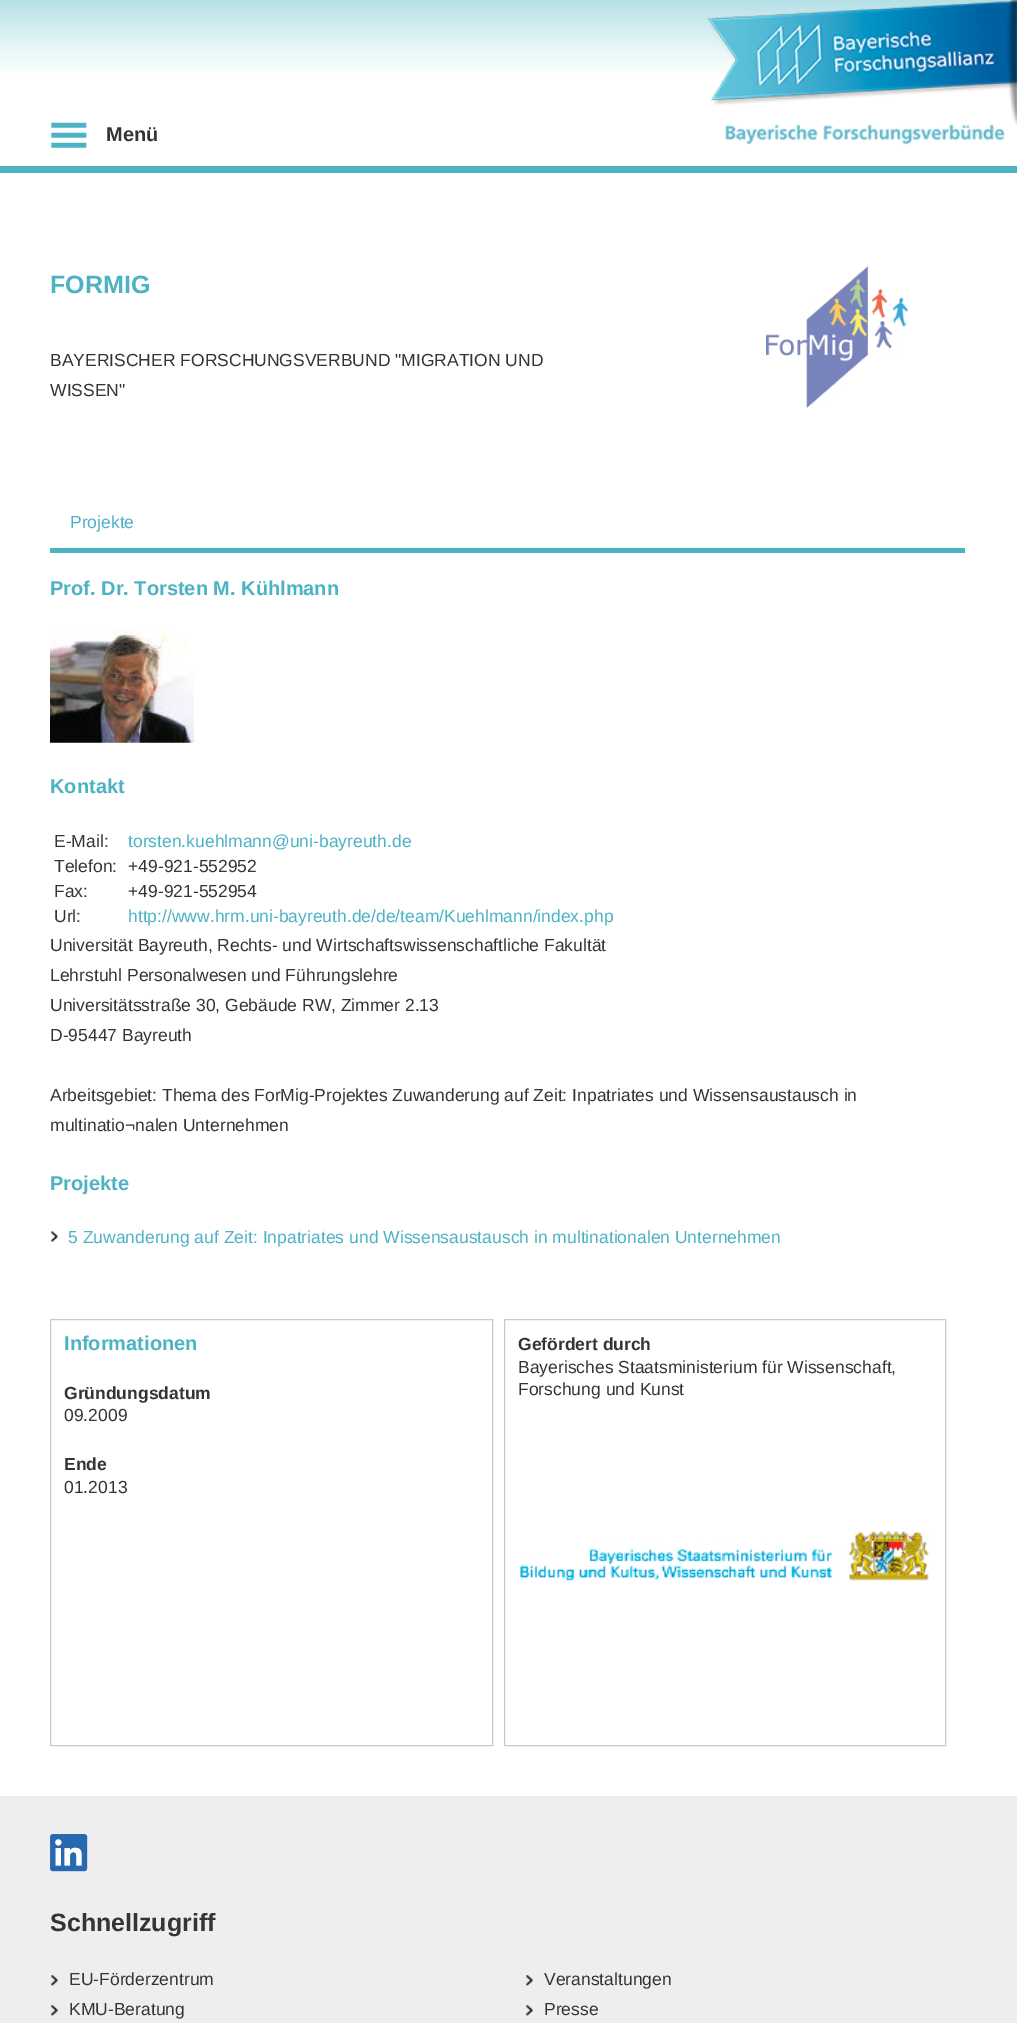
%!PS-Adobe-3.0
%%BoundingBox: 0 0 1017 2023
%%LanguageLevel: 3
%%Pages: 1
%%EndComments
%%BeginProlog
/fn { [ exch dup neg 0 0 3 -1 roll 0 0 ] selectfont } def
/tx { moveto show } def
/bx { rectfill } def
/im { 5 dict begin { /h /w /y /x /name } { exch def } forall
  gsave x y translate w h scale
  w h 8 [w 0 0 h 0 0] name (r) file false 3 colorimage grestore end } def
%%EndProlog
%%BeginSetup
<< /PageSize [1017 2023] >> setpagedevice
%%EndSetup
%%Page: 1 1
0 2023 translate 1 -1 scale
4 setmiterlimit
1 setgray
0 0 1017 2023 bx
(image0.raw) 0 0 1017 73 im
0.298 0.698 0.769 setrgbcolor
0 166 1017 7 bx
(image1.raw) 51 122 36 26 im
/LiberationSans-Bold 20 fn
0.204 setgray
(Menü) 106 141 tx
(image2.raw) 707 0 310 145 im
/LiberationSans-Bold 25 fn
0.298 0.698 0.769 setrgbcolor
(FORMIG) 50 293 tx
/LiberationSans-Regular 17.5 fn
0.204 setgray
(BAYERISCHER FORSCHUNGSVERBUND "MIGRATION UND) 50 366 tx
(WISSEN") 50 396 tx
(image3.raw) 766 266 142 142 im
0.298 0.698 0.769 setrgbcolor
50 548 915 5 bx
(Projekte) 70 528 tx
/LiberationSans-Bold 20 fn
(Prof. Dr. Torsten M. Kühlmann) 50 595 tx
(image4.raw) 50 629 144 114 im
(Kontakt) 50 793 tx
/LiberationSans-Regular 17.5 fn
0.204 setgray
(E-Mail:) 54 847 tx
0.298 0.698 0.769 setrgbcolor
(torsten.kuehlmann@uni-bayreuth.de) 128 847 tx
0.204 setgray
(Telefon:) 54 872 tx
(+49-921-552952) 128 872 tx
(Fax:) 54 897 tx
(+49-921-552954) 128 897 tx
(Url:) 54 922 tx
0.298 0.698 0.769 setrgbcolor
(http://www.hrm.uni-bayreuth.de/de/team/Kuehlmann/index.php) 128 922 tx
0.204 setgray
(Universität Bayreuth, Rechts- und Wirtschaftswissenschaftliche Fakultät) 50 951 tx
(Lehrstuhl Personalwesen und Führungslehre) 50 981 tx
(Universitätsstraße 30, Gebäude RW, Zimmer 2.13) 50 1011 tx
(D-95447 Bayreuth) 50 1041 tx
(Arbeitsgebiet: Thema des ForMig-Projektes Zuwanderung auf Zeit: Inpatriates und Wissensaustausch in) 50 1101 tx
(multinatio¬nalen Unternehmen) 50 1131 tx
/LiberationSans-Bold 20 fn
0.298 0.698 0.769 setrgbcolor
(Projekte) 50 1190 tx
(image5.raw) 51 1231 7 11 im
/LiberationSans-Regular 17.5 fn
(5 Zuwanderung auf Zeit: Inpatriates und Wissensaustausch in multinationalen Unternehmen) 68 1243 tx
0.792 setgray
50.5 1319.5 442 426 rectstroke
/LiberationSans-Bold 20 fn
0.298 0.698 0.769 setrgbcolor
(Informationen) 64 1350 tx
/LiberationSans-Bold 17.5 fn
0.204 setgray
(Gründungsdatum) 64 1399 tx
/LiberationSans-Regular 17.5 fn
(09.2009) 64 1421 tx
/LiberationSans-Bold 17.5 fn
(Ende) 64 1470 tx
/LiberationSans-Regular 17.5 fn
(01.2013) 64 1493 tx
0.792 setgray
504.5 1319.5 441 426 rectstroke
/LiberationSans-Bold 17.5 fn
0.204 setgray
(Gefördert durch) 518 1350 tx
/LiberationSans-Regular 17.5 fn
(Bayerisches Staatsministerium für Wissenschaft,) 518 1373 tx
(Forschung und Kunst) 518 1395 tx
(image6.raw) 520 1531 409 51 im
0.933 setgray
0 1796 1017 227 bx
(image7.raw) 50 1834 38 38 im
/LiberationSans-Bold 25 fn
0.204 setgray
(Schnellzugriff) 50 1931 tx
(image8.raw) 51 1975 7 11 im
/LiberationSans-Regular 17.5 fn
(EU-Förderzentrum) 69 1985 tx
(image9.raw) 51 2005 7 11 im
(KMU-Beratung) 69 2015 tx
(image10.raw) 526 1975 7 11 im
(Veranstaltungen) 544 1985 tx
(image11.raw) 526 2005 7 11 im
(Presse) 544 2015 tx
showpage
%%EOF
